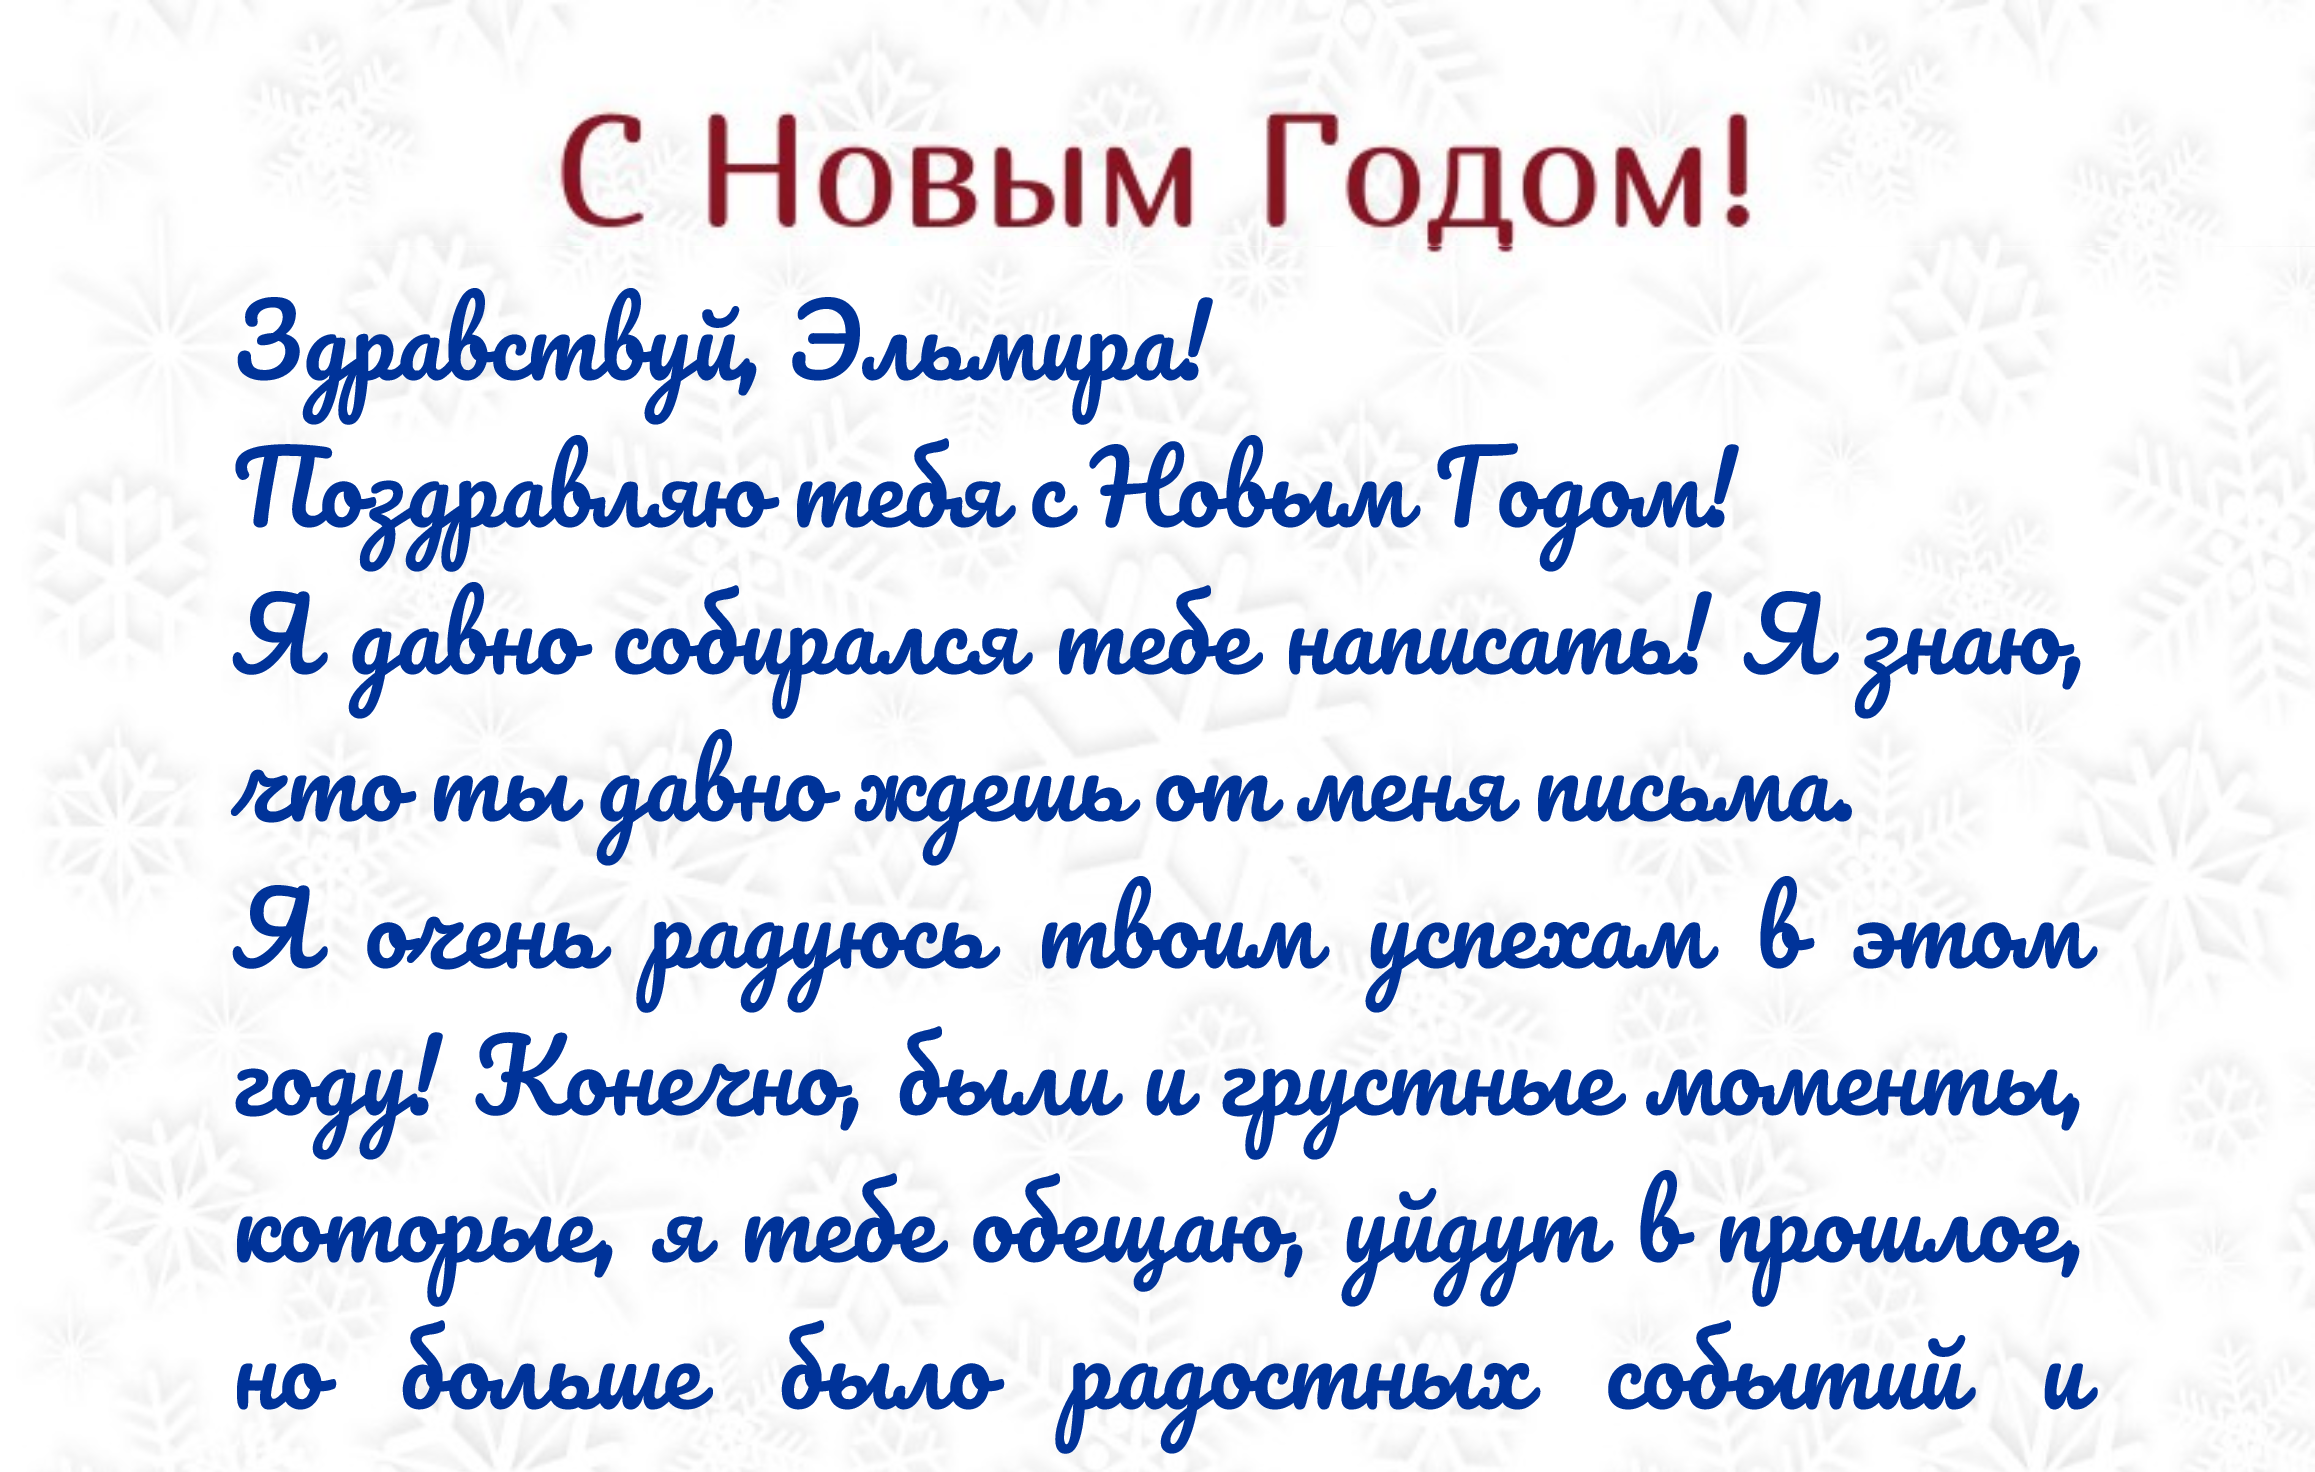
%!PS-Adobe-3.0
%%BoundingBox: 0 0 2315 1472
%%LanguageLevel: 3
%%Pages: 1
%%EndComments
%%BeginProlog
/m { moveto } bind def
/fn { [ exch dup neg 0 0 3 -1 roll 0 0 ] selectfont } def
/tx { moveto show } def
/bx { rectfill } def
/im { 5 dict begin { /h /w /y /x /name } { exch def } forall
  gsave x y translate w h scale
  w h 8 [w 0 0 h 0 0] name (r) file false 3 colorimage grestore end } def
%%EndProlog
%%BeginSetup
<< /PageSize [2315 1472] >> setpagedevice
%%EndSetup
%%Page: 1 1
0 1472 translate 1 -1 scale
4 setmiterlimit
1 setgray
0 0 2315 1472 bx
(image0.raw) 0 0 2315 246 im
(image1.raw) 0 246 2315 1226 im
/Pacifico-Regular 98 fn
0 0.2 0.6 setrgbcolor
(Здравствуй, Эльмира!) 232 380 tx
(Поздравляю тебя с Новым Годом!) 232 527 tx
232 674 m 7.5 0 32 (Я давно собирался тебе написать! Я знаю,) widthshow
(что ты давно ждешь от меня письма.) 232 821 tx
232 968 m 23 0 32 (Я очень радуюсь твоим успехам в этом) widthshow
232 1115 m 6 0 32 (году! Конечно, были и грустные моменты,) widthshow
232 1262 m 8 0 32 (которые, я тебе обещаю, уйдут в прошлое,) widthshow
232 1409 m 50.75 0 32 (но больше было радостных событий и) widthshow
showpage
%%EOF
